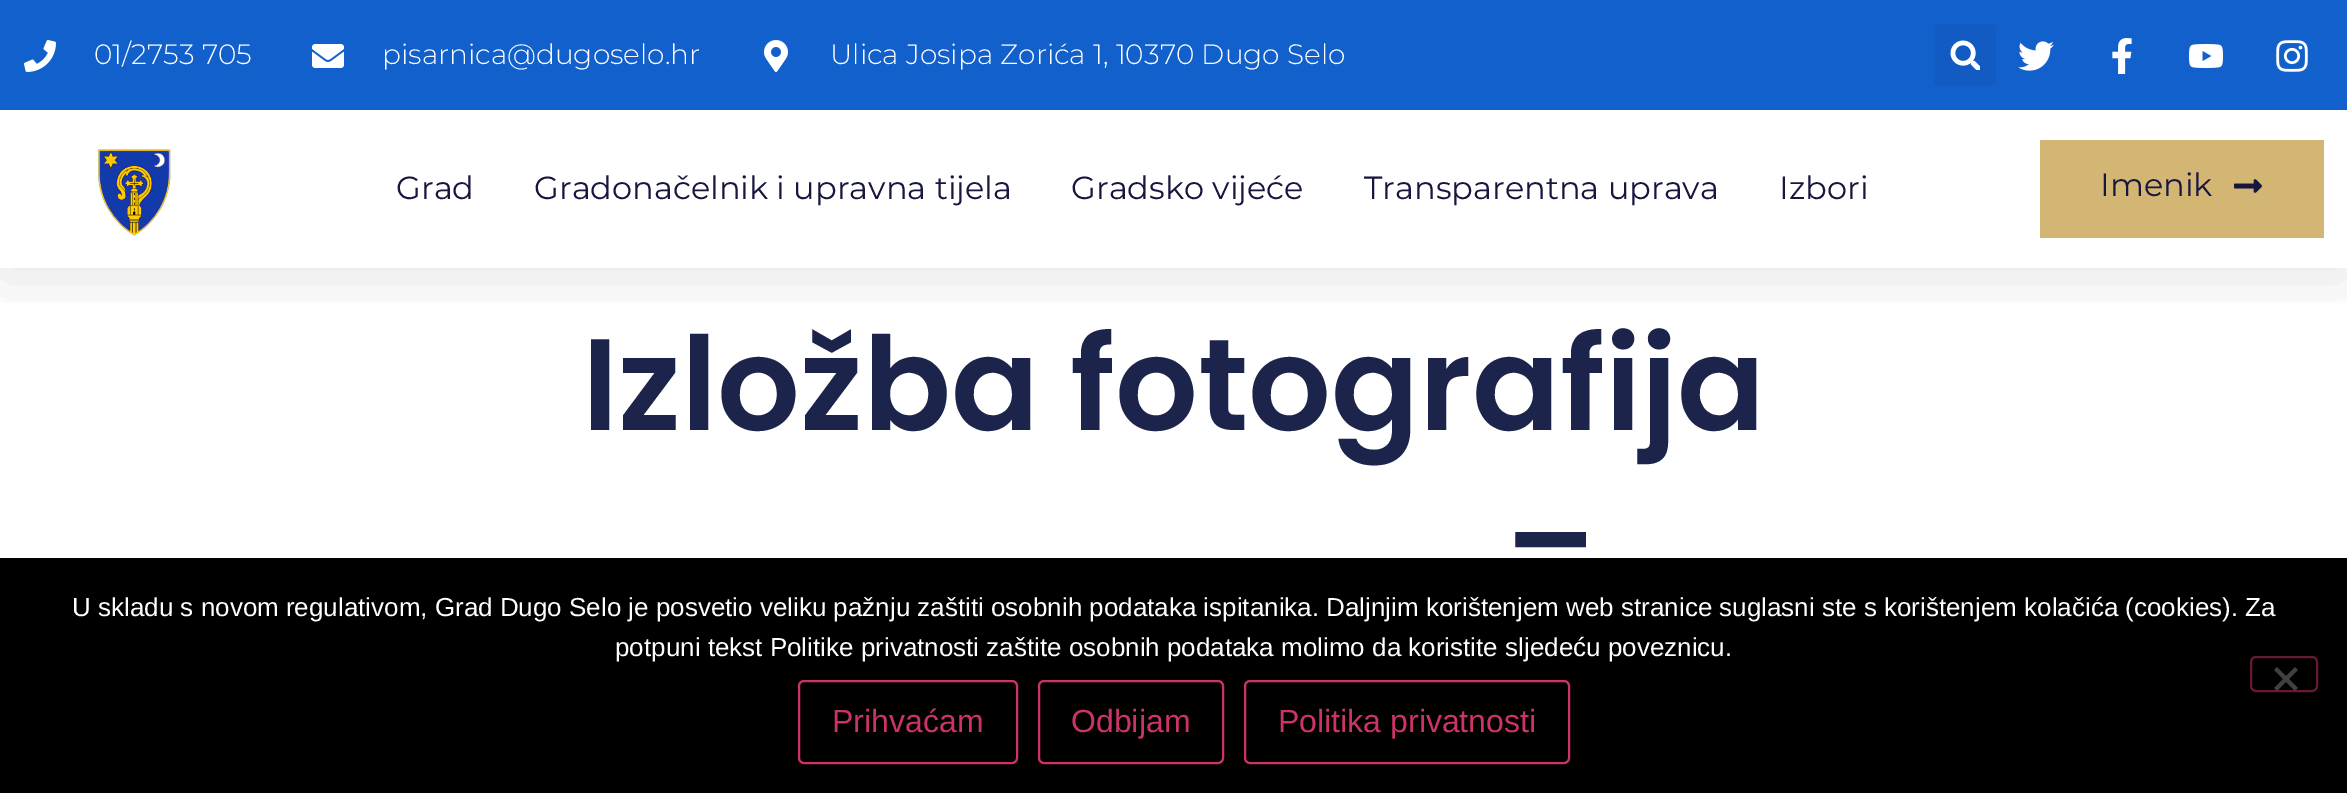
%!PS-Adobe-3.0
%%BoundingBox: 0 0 2347 793
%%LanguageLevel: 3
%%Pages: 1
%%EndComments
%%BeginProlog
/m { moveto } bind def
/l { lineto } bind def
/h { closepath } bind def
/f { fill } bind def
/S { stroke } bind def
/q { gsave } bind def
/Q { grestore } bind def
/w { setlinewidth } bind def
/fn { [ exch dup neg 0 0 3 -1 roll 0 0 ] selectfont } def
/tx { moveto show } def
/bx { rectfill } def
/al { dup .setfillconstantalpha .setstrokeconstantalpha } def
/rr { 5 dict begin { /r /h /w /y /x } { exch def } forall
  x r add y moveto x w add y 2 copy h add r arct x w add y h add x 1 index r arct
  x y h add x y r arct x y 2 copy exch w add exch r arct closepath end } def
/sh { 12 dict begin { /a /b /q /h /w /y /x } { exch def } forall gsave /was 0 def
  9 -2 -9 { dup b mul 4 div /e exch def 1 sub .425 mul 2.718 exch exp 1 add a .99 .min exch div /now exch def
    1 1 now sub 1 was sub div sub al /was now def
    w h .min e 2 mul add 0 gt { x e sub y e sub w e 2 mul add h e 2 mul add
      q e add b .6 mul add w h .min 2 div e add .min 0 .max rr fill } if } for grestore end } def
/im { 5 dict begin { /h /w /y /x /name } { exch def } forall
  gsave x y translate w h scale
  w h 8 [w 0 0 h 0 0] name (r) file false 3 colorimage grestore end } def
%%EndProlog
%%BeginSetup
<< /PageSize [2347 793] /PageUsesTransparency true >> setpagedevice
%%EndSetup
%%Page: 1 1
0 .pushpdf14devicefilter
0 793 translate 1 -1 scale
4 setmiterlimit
1 setgray
0 0 2347 793 bx
q
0 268 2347 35 rectclip
0 setgray
0 10 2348 268 0 30 0.1 sh
Q
0.071 0.376 0.8 setrgbcolor
0 0 2347 110 bx
(image0.raw) 24 40 32 32 im
/Montserrat-Light 28 fn
1 setgray
(01/2753 705) 94 64 tx
(image1.raw) 312 44 32 24 im
(pisarnica@dugoselo.hr) 382 64 tx
(image2.raw) 764 40 24 32 im
(Ulica Josipa Zorića 1, 10370 Dugo Selo) 830 64 tx
0.067 0.357 0.761 setrgbcolor
1934 24 62 62 6 rr f
(image3.raw) 1950 40 30 30 im
(image4.raw) 2018 41 36 30 im
(image5.raw) 2112 38 20 36 im
(image6.raw) 2188 44 36 24 im
(image7.raw) 2276 40 32 32 im
(image8.raw) 97 149 74 87 im
/Montserrat-Regular 32 fn
0.086 0.086 0.247 setrgbcolor
(Grad) 396 199 tx
(Gradonačelnik i upravna tijela) 534 199 tx
(Gradsko vijeće) 1071 199 tx
(Transparentna uprava) 1364 199 tx
(Izbori) 1779 199 tx
0.827 0.71 0.455 setrgbcolor
2040 140 284 98 bx
0.086 0.086 0.247 setrgbcolor
(Imenik) 2100 196 tx
(image9.raw) 2234 179 28 14 im
/Poppins-SemiBold 130 fn
0.11 0.141 0.294 setrgbcolor
(Izložba fotografija) 582 430 tx
(–) 1505 586 tx
0 setgray
0 558 2347 235 bx
/LiberationSans-Regular 26 fn
1 setgray
(U skladu s novom regulativom, Grad Dugo Selo je posvetio veliku pažnju zaštiti osobnih podataka ispitanika. Daljnjim korištenjem web stranice suglasni ste s korištenjem kolačića \(cookies\). Za) 72 616 tx
(potpuni tekst Politike privatnosti zaštite osobnih podataka molimo da koristite sljedeću poveznicu.) 615 656 tx
0.4 0.102 0.2 setrgbcolor
2 w
2251 657 66 34 5 rr S
0.251 setgray
2295 667 m 2298 670 l 2277 691 l 2274 688 l h f
2274 670 m 2277 667 l 2298 688 l 2295 691 l h f
0.8 0.2 0.4 setrgbcolor
799 681 218 82 5 rr S
/LiberationSans-Regular 32 fn
(Prihvaćam) 832 732 tx
1039 681 184 82 5 rr S
(Odbijam) 1071 732 tx
1245 681 324 82 5 rr S
(Politika privatnosti) 1278 732 tx
.poppdf14devicefilter showpage
%%EOF
